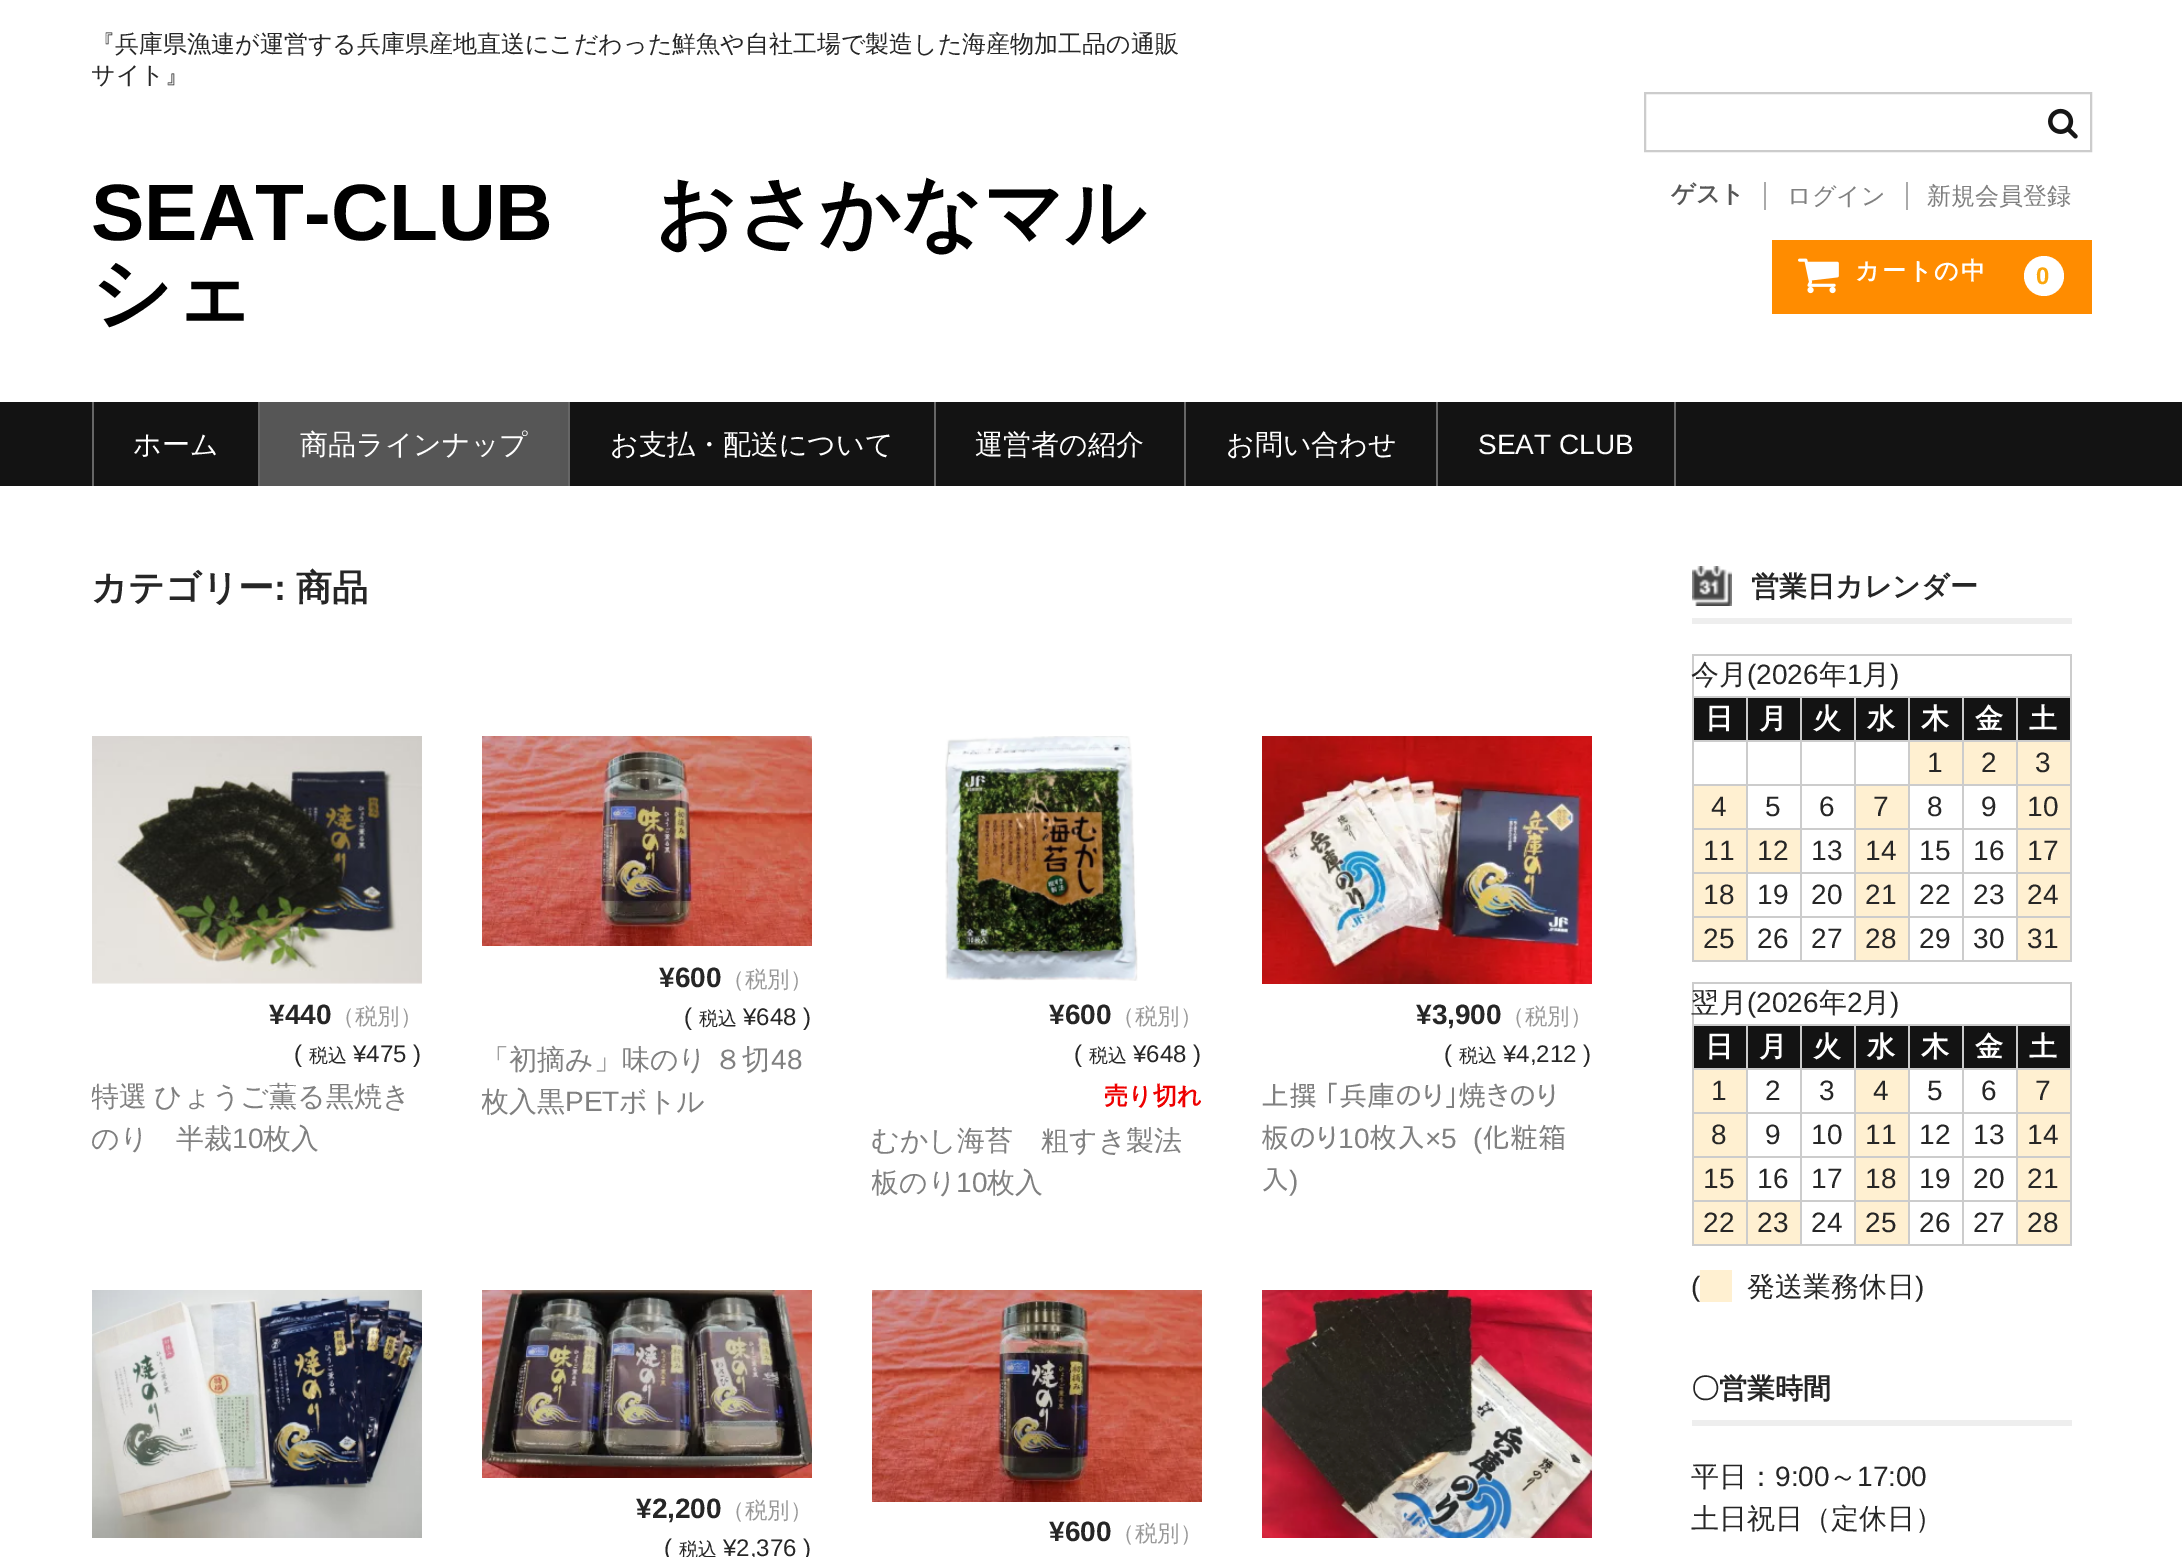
%!PS-Adobe-3.0
%%BoundingBox: 0 0 2182 1557
%%LanguageLevel: 3
%%Pages: 1
%%EndComments
%%BeginProlog
/m { moveto } bind def
/f { fill } bind def
/q { gsave } bind def
/Q { grestore } bind def
/w { setlinewidth } bind def
/fn { [ exch dup neg 0 0 3 -1 roll 0 0 ] selectfont } def
/tx { moveto show } def
/bx { rectfill } def
/ci { newpath 0 360 arc closepath } def
/im { 5 dict begin { /h /w /y /x /name } { exch def } forall
  gsave x y translate w h scale
  w h 8 [w 0 0 h 0 0] name (r) file false 3 colorimage grestore end } def
%%EndProlog
%%BeginSetup
<< /PageSize [2182 1557] >> setpagedevice
%%EndSetup
%%Page: 1 1
0 1557 translate 1 -1 scale
4 setmiterlimit
1 setgray
0 0 2182 1557 bx
/WenQuanYiZenHei-Medium 24 fn
0.149 setgray
(『兵庫県漁連が運営する兵庫県産地直送にこだわった鮮魚や自社工場で製造した海産物加工品の通販) 91 52 tx
(サイト』) 91 83 tx
/LiberationSans-Bold 80 fn
0 setgray
(SEAT-CLUB) 91 240 tx
/WenQuanYiZenHei-Bold 80 fn
(おさかなマル) 655 240 tx
(シェ) 91 320 tx
0.8 setgray
2 w
1645 93 446 58 rectstroke
(image0.raw) 2048 108 30 31 im
0.667 setgray
1764 182 2 28 bx
/WenQuanYiZenHei-Bold 24 fn
0.337 setgray
(ゲスト) 1671 202 tx
0.667 setgray
1906 182 2 28 bx
/WenQuanYiZenHei-Medium 24 fn
0.502 setgray
(ログイン) 1787 204 tx
(新規会員登録) 1927 204 tx
1 0.549 0 setrgbcolor
1772 240 320 74 bx
(image1.raw) 1798 258 41 36 im
/WenQuanYiZenHei-Bold 24 fn
1 setgray
1855 279 m 2 0 (カートの中) ashow
2044 276 20 ci f
/LiberationSans-Bold 24 fn
0.984 0.651 0.051 setrgbcolor
2036 284 m 2 0 (0) ashow
0.075 setgray
0 402 2182 84 bx
0.4 setgray
258 402 2 84 bx
92 402 2 84 bx
/WenQuanYiZenHei-Medium 28 fn
1 setgray
(ホーム) 133 454 tx
0.4 setgray
568 402 2 84 bx
0.337 setgray
260 402 308 84 bx
1 setgray
(商品ラインナップ) 300 454 tx
0.4 setgray
934 402 2 84 bx
1 setgray
(お支払・配送について) 610 454 tx
0.4 setgray
1184 402 2 84 bx
1 setgray
(運営者の紹介) 975 454 tx
0.4 setgray
1436 402 2 84 bx
1 setgray
(お問い合わせ) 1226 454 tx
0.4 setgray
1674 402 2 84 bx
/LiberationSans-Regular 28 fn
1 setgray
(SEAT CLUB) 1478 454 tx
/WenQuanYiZenHei-Bold 36 fn
0.149 setgray
(カテゴリー) 91 600 tx
/LiberationSans-Bold 36 fn
(:) 274 600 tx
/WenQuanYiZenHei-Bold 36 fn
(商品) 296 600 tx
(image2.raw) 92 736 330 248 im
/LiberationSans-Bold 28 fn
(¥440) 269 1024 tx
/WenQuanYiZenHei-Medium 22.5 fn
0.6 setgray
(（税別）) 332 1024 tx
/LiberationSans-Regular 24 fn
0.149 setgray
(\() 294 1062 tx
/WenQuanYiZenHei-Medium 19 fn
(税込) 309 1062 tx
/LiberationSans-Regular 24 fn
(¥475 \)) 353 1062 tx
q
92 1076 330 126 rectclip
/WenQuanYiZenHei-Medium 28 fn
0.502 setgray
91 1106 m -1 0 32 (特選 ひょうご薫る黒焼き) widthshow
Q
/WenQuanYiZenHei-Medium 28 fn
0.502 setgray
(のり　半裁) 91 1148 tx
/LiberationSans-Regular 28 fn
(10) 232 1148 tx
/WenQuanYiZenHei-Medium 28 fn
(枚入) 263 1148 tx
(image3.raw) 482 736 330 210 im
/LiberationSans-Bold 28 fn
0.149 setgray
(¥600) 659 987 tx
/WenQuanYiZenHei-Medium 22.5 fn
0.6 setgray
(（税別）) 722 987 tx
/LiberationSans-Regular 24 fn
0.149 setgray
(\() 684 1025 tx
/WenQuanYiZenHei-Medium 19 fn
(税込) 699 1025 tx
/LiberationSans-Regular 24 fn
(¥648 \)) 743 1025 tx
/WenQuanYiZenHei-Medium 28 fn
0.502 setgray
481 1069 m -1 0 32 (「初摘み」味のり ８切) widthshow
/LiberationSans-Regular 28 fn
(48) 771 1069 tx
q
482 1038 330 126 rectclip
/WenQuanYiZenHei-Medium 28 fn
(枚入黒) 481 1111 tx
Q
(PET) 565 1111 tx
/WenQuanYiZenHei-Medium 28 fn
(ボトル) 619 1111 tx
(image4.raw) 945 736 193 245 im
/LiberationSans-Bold 28 fn
0.149 setgray
(¥600) 1049 1024 tx
/WenQuanYiZenHei-Medium 22.5 fn
0.6 setgray
(（税別）) 1112 1024 tx
/LiberationSans-Regular 24 fn
0.149 setgray
(\() 1074 1062 tx
/WenQuanYiZenHei-Medium 19 fn
(税込) 1089 1062 tx
/LiberationSans-Regular 24 fn
(¥648 \)) 1133 1062 tx
/WenQuanYiZenHei-Bold 24 fn
0.933 0 0 setrgbcolor
(売り切れ) 1104 1104 tx
/WenQuanYiZenHei-Medium 28 fn
0.502 setgray
(むかし海苔　粗すき製法) 871 1150 tx
q
872 1120 330 126 rectclip
(板のり) 871 1192 tx
Q
/LiberationSans-Regular 28 fn
(10) 956 1192 tx
/WenQuanYiZenHei-Medium 28 fn
(枚入) 987 1192 tx
(image5.raw) 1262 736 330 248 im
/LiberationSans-Bold 28 fn
0.149 setgray
(¥3,900) 1416 1024 tx
/WenQuanYiZenHei-Medium 22.5 fn
0.6 setgray
(（税別）) 1502 1024 tx
/LiberationSans-Regular 24 fn
0.149 setgray
(\() 1444 1062 tx
/WenQuanYiZenHei-Medium 19 fn
(税込) 1459 1062 tx
/LiberationSans-Regular 24 fn
(¥4,212 \)) 1503 1062 tx
/IPAPGothic-Regular 28 fn
0.502 setgray
(上撰 ｢兵庫のり｣焼きのり) 1261 1106 tx
(板のり) 1261 1148 tx
/LiberationSans-Regular 28 fn
(10) 1338 1148 tx
/IPAPGothic-Regular 28 fn
(枚入) 1369 1148 tx
/LiberationSans-Regular 28 fn
(×5) 1425 1148 tx
(\() 1473 1148 tx
/IPAPGothic-Regular 28 fn
(化粧箱) 1482 1148 tx
(入) 1261 1190 tx
/LiberationSans-Regular 28 fn
(\)) 1289 1190 tx
(image6.raw) 92 1290 330 248 im
(image7.raw) 482 1290 330 188 im
/LiberationSans-Bold 28 fn
0.149 setgray
(¥2,200) 636 1518 tx
/WenQuanYiZenHei-Medium 22.5 fn
0.6 setgray
(（税別）) 722 1518 tx
/LiberationSans-Regular 24 fn
0.149 setgray
(\() 664 1556 tx
/WenQuanYiZenHei-Medium 19 fn
(税込) 679 1556 tx
/LiberationSans-Regular 24 fn
(¥2,376 \)) 723 1556 tx
(image8.raw) 872 1290 330 212 im
/LiberationSans-Bold 28 fn
(¥600) 1049 1541 tx
/WenQuanYiZenHei-Medium 22.5 fn
0.6 setgray
(（税別）) 1112 1541 tx
(image9.raw) 1262 1290 330 248 im
0.933 setgray
1692 618 380 6 bx
(image10.raw) 1692 566 40 40 im
/WenQuanYiZenHei-Bold 28 fn
0.149 setgray
(営業日カレンダー) 1751 596 tx
0.8 setgray
1692 654 380 2 bx
2070 654 2 308 bx
1692 960 380 2 bx
1692 654 2 308 bx
/WenQuanYiZenHei-Medium 28 fn
0.149 setgray
(今月) 1691 684 tx
/LiberationSans-Regular 28 fn
(\(2026) 1747 684 tx
/WenQuanYiZenHei-Medium 28 fn
(年) 1819 684 tx
/LiberationSans-Regular 28 fn
(1) 1847 684 tx
/WenQuanYiZenHei-Medium 28 fn
(月) 1862 684 tx
/LiberationSans-Regular 28 fn
(\)) 1890 684 tx
0.075 setgray
1694 698 52 42 bx
0.8 setgray
2016 696 56 2 bx
2016 740 56 2 bx
2016 784 56 2 bx
2016 828 56 2 bx
2016 872 56 2 bx
2016 916 56 2 bx
2016 916 2 46 bx
1962 916 56 2 bx
2016 872 2 46 bx
1962 872 56 2 bx
2016 828 2 46 bx
1962 828 56 2 bx
2016 784 2 46 bx
1962 784 56 2 bx
2016 740 2 46 bx
1962 740 56 2 bx
2016 696 2 46 bx
1962 696 56 2 bx
1962 916 2 46 bx
1908 916 56 2 bx
1962 872 2 46 bx
1908 872 56 2 bx
1962 828 2 46 bx
1908 828 56 2 bx
1962 784 2 46 bx
1908 784 56 2 bx
1962 740 2 46 bx
1908 740 56 2 bx
1962 696 2 46 bx
1908 696 56 2 bx
1908 916 2 46 bx
1854 916 56 2 bx
1908 872 2 46 bx
1854 872 56 2 bx
1908 828 2 46 bx
1854 828 56 2 bx
1908 784 2 46 bx
1854 784 56 2 bx
1908 740 2 46 bx
1854 740 56 2 bx
1908 696 2 46 bx
1854 696 56 2 bx
1854 916 2 46 bx
1800 916 56 2 bx
1854 872 2 46 bx
1800 872 56 2 bx
1854 828 2 46 bx
1800 828 56 2 bx
1854 784 2 46 bx
1800 784 56 2 bx
1854 740 2 46 bx
1800 740 56 2 bx
1854 696 2 46 bx
1800 696 56 2 bx
1800 916 2 46 bx
1746 916 56 2 bx
1800 872 2 46 bx
1746 872 56 2 bx
1800 828 2 46 bx
1746 828 56 2 bx
1800 784 2 46 bx
1746 784 56 2 bx
1800 740 2 46 bx
1746 740 56 2 bx
1800 696 2 46 bx
1746 696 56 2 bx
1746 916 2 46 bx
1692 916 56 2 bx
1746 872 2 46 bx
1692 872 56 2 bx
1746 828 2 46 bx
1692 828 56 2 bx
1746 784 2 46 bx
1692 784 56 2 bx
1746 740 2 46 bx
1692 740 56 2 bx
1746 696 2 46 bx
1692 696 56 2 bx
/WenQuanYiZenHei-Bold 28 fn
1 setgray
(日) 1705 728 tx
0.075 setgray
1748 698 52 42 bx
1 setgray
(月) 1759 728 tx
0.075 setgray
1802 698 52 42 bx
1 setgray
(火) 1813 728 tx
0.075 setgray
1856 698 52 42 bx
1 setgray
(水) 1867 728 tx
0.075 setgray
1910 698 52 42 bx
1 setgray
(木) 1921 728 tx
0.075 setgray
1964 698 52 42 bx
1 setgray
(金) 1975 728 tx
0.075 setgray
2018 698 52 42 bx
1 setgray
(土) 2029 728 tx
1 0.941 0.82 setrgbcolor
1910 742 52 42 bx
/LiberationSans-Regular 28 fn
0.149 setgray
(1) 1927 772 tx
1 0.941 0.82 setrgbcolor
1964 742 52 42 bx
0.149 setgray
(2) 1981 772 tx
1 0.941 0.82 setrgbcolor
2018 742 52 42 bx
0.149 setgray
(3) 2035 772 tx
1 0.941 0.82 setrgbcolor
1694 786 52 42 bx
0.149 setgray
(4) 1711 816 tx
(5) 1765 816 tx
(6) 1819 816 tx
1 0.941 0.82 setrgbcolor
1856 786 52 42 bx
0.149 setgray
(7) 1873 816 tx
(8) 1927 816 tx
(9) 1981 816 tx
1 0.941 0.82 setrgbcolor
2018 786 52 42 bx
0.149 setgray
(10) 2027 816 tx
1 0.941 0.82 setrgbcolor
1694 830 52 42 bx
0.149 setgray
(11) 1703 860 tx
1 0.941 0.82 setrgbcolor
1748 830 52 42 bx
0.149 setgray
(12) 1757 860 tx
(13) 1811 860 tx
1 0.941 0.82 setrgbcolor
1856 830 52 42 bx
0.149 setgray
(14) 1865 860 tx
(15) 1919 860 tx
(16) 1973 860 tx
1 0.941 0.82 setrgbcolor
2018 830 52 42 bx
0.149 setgray
(17) 2027 860 tx
1 0.941 0.82 setrgbcolor
1694 874 52 42 bx
0.149 setgray
(18) 1703 904 tx
(19) 1757 904 tx
(20) 1811 904 tx
1 0.941 0.82 setrgbcolor
1856 874 52 42 bx
0.149 setgray
(21) 1865 904 tx
(22) 1919 904 tx
(23) 1973 904 tx
1 0.941 0.82 setrgbcolor
2018 874 52 42 bx
0.149 setgray
(24) 2027 904 tx
1 0.941 0.82 setrgbcolor
1694 918 52 42 bx
0.149 setgray
(25) 1703 948 tx
(26) 1757 948 tx
(27) 1811 948 tx
1 0.941 0.82 setrgbcolor
1856 918 52 42 bx
0.149 setgray
(28) 1865 948 tx
(29) 1919 948 tx
(30) 1973 948 tx
1 0.941 0.82 setrgbcolor
2018 918 52 42 bx
0.149 setgray
(31) 2027 948 tx
0.8 setgray
1692 982 380 2 bx
2070 982 2 264 bx
1692 1244 380 2 bx
1692 982 2 264 bx
/WenQuanYiZenHei-Medium 28 fn
0.149 setgray
(翌月) 1691 1012 tx
/LiberationSans-Regular 28 fn
(\(2026) 1747 1012 tx
/WenQuanYiZenHei-Medium 28 fn
(年) 1819 1012 tx
/LiberationSans-Regular 28 fn
(2) 1847 1012 tx
/WenQuanYiZenHei-Medium 28 fn
(月) 1862 1012 tx
/LiberationSans-Regular 28 fn
(\)) 1890 1012 tx
0.075 setgray
1694 1026 52 42 bx
0.8 setgray
2016 1024 56 2 bx
2016 1068 56 2 bx
2016 1112 56 2 bx
2016 1156 56 2 bx
2016 1200 56 2 bx
2016 1200 2 46 bx
1962 1200 56 2 bx
2016 1156 2 46 bx
1962 1156 56 2 bx
2016 1112 2 46 bx
1962 1112 56 2 bx
2016 1068 2 46 bx
1962 1068 56 2 bx
2016 1024 2 46 bx
1962 1024 56 2 bx
1962 1200 2 46 bx
1908 1200 56 2 bx
1962 1156 2 46 bx
1908 1156 56 2 bx
1962 1112 2 46 bx
1908 1112 56 2 bx
1962 1068 2 46 bx
1908 1068 56 2 bx
1962 1024 2 46 bx
1908 1024 56 2 bx
1908 1200 2 46 bx
1854 1200 56 2 bx
1908 1156 2 46 bx
1854 1156 56 2 bx
1908 1112 2 46 bx
1854 1112 56 2 bx
1908 1068 2 46 bx
1854 1068 56 2 bx
1908 1024 2 46 bx
1854 1024 56 2 bx
1854 1200 2 46 bx
1800 1200 56 2 bx
1854 1156 2 46 bx
1800 1156 56 2 bx
1854 1112 2 46 bx
1800 1112 56 2 bx
1854 1068 2 46 bx
1800 1068 56 2 bx
1854 1024 2 46 bx
1800 1024 56 2 bx
1800 1200 2 46 bx
1746 1200 56 2 bx
1800 1156 2 46 bx
1746 1156 56 2 bx
1800 1112 2 46 bx
1746 1112 56 2 bx
1800 1068 2 46 bx
1746 1068 56 2 bx
1800 1024 2 46 bx
1746 1024 56 2 bx
1746 1200 2 46 bx
1692 1200 56 2 bx
1746 1156 2 46 bx
1692 1156 56 2 bx
1746 1112 2 46 bx
1692 1112 56 2 bx
1746 1068 2 46 bx
1692 1068 56 2 bx
1746 1024 2 46 bx
1692 1024 56 2 bx
/WenQuanYiZenHei-Bold 28 fn
1 setgray
(日) 1705 1056 tx
0.075 setgray
1748 1026 52 42 bx
1 setgray
(月) 1759 1056 tx
0.075 setgray
1802 1026 52 42 bx
1 setgray
(火) 1813 1056 tx
0.075 setgray
1856 1026 52 42 bx
1 setgray
(水) 1867 1056 tx
0.075 setgray
1910 1026 52 42 bx
1 setgray
(木) 1921 1056 tx
0.075 setgray
1964 1026 52 42 bx
1 setgray
(金) 1975 1056 tx
0.075 setgray
2018 1026 52 42 bx
1 setgray
(土) 2029 1056 tx
1 0.941 0.82 setrgbcolor
1694 1070 52 42 bx
/LiberationSans-Regular 28 fn
0.149 setgray
(1) 1711 1100 tx
(2) 1765 1100 tx
(3) 1819 1100 tx
1 0.941 0.82 setrgbcolor
1856 1070 52 42 bx
0.149 setgray
(4) 1873 1100 tx
(5) 1927 1100 tx
(6) 1981 1100 tx
1 0.941 0.82 setrgbcolor
2018 1070 52 42 bx
0.149 setgray
(7) 2035 1100 tx
1 0.941 0.82 setrgbcolor
1694 1114 52 42 bx
0.149 setgray
(8) 1711 1144 tx
(9) 1765 1144 tx
(10) 1811 1144 tx
1 0.941 0.82 setrgbcolor
1856 1114 52 42 bx
0.149 setgray
(11) 1865 1144 tx
(12) 1919 1144 tx
(13) 1973 1144 tx
1 0.941 0.82 setrgbcolor
2018 1114 52 42 bx
0.149 setgray
(14) 2027 1144 tx
1 0.941 0.82 setrgbcolor
1694 1158 52 42 bx
0.149 setgray
(15) 1703 1188 tx
(16) 1757 1188 tx
(17) 1811 1188 tx
1 0.941 0.82 setrgbcolor
1856 1158 52 42 bx
0.149 setgray
(18) 1865 1188 tx
(19) 1919 1188 tx
(20) 1973 1188 tx
1 0.941 0.82 setrgbcolor
2018 1158 52 42 bx
0.149 setgray
(21) 2027 1188 tx
1 0.941 0.82 setrgbcolor
1694 1202 52 42 bx
0.149 setgray
(22) 1703 1232 tx
1 0.941 0.82 setrgbcolor
1748 1202 52 42 bx
0.149 setgray
(23) 1757 1232 tx
(24) 1811 1232 tx
1 0.941 0.82 setrgbcolor
1856 1202 52 42 bx
0.149 setgray
(25) 1865 1232 tx
(26) 1919 1232 tx
(27) 1973 1232 tx
1 0.941 0.82 setrgbcolor
2018 1202 52 42 bx
0.149 setgray
(28) 2027 1232 tx
(\() 1691 1296 tx
1 0.941 0.82 setrgbcolor
1700 1270 32 32 bx
/WenQuanYiZenHei-Medium 28 fn
0.149 setgray
(発送業務休日) 1747 1296 tx
/LiberationSans-Regular 28 fn
(\)) 1915 1296 tx
0.933 setgray
1692 1420 380 6 bx
/WenQuanYiZenHei-Bold 28 fn
0.149 setgray
(〇営業時間) 1691 1398 tx
/WenQuanYiZenHei-Medium 28 fn
(平日：) 1691 1486 tx
/LiberationSans-Regular 28 fn
(9:00) 1775 1486 tx
/WenQuanYiZenHei-Medium 28 fn
(～) 1829 1486 tx
/LiberationSans-Regular 28 fn
(17:00) 1857 1486 tx
/WenQuanYiZenHei-Medium 28 fn
(土日祝日（定休日）) 1691 1528 tx
showpage
%%EOF
